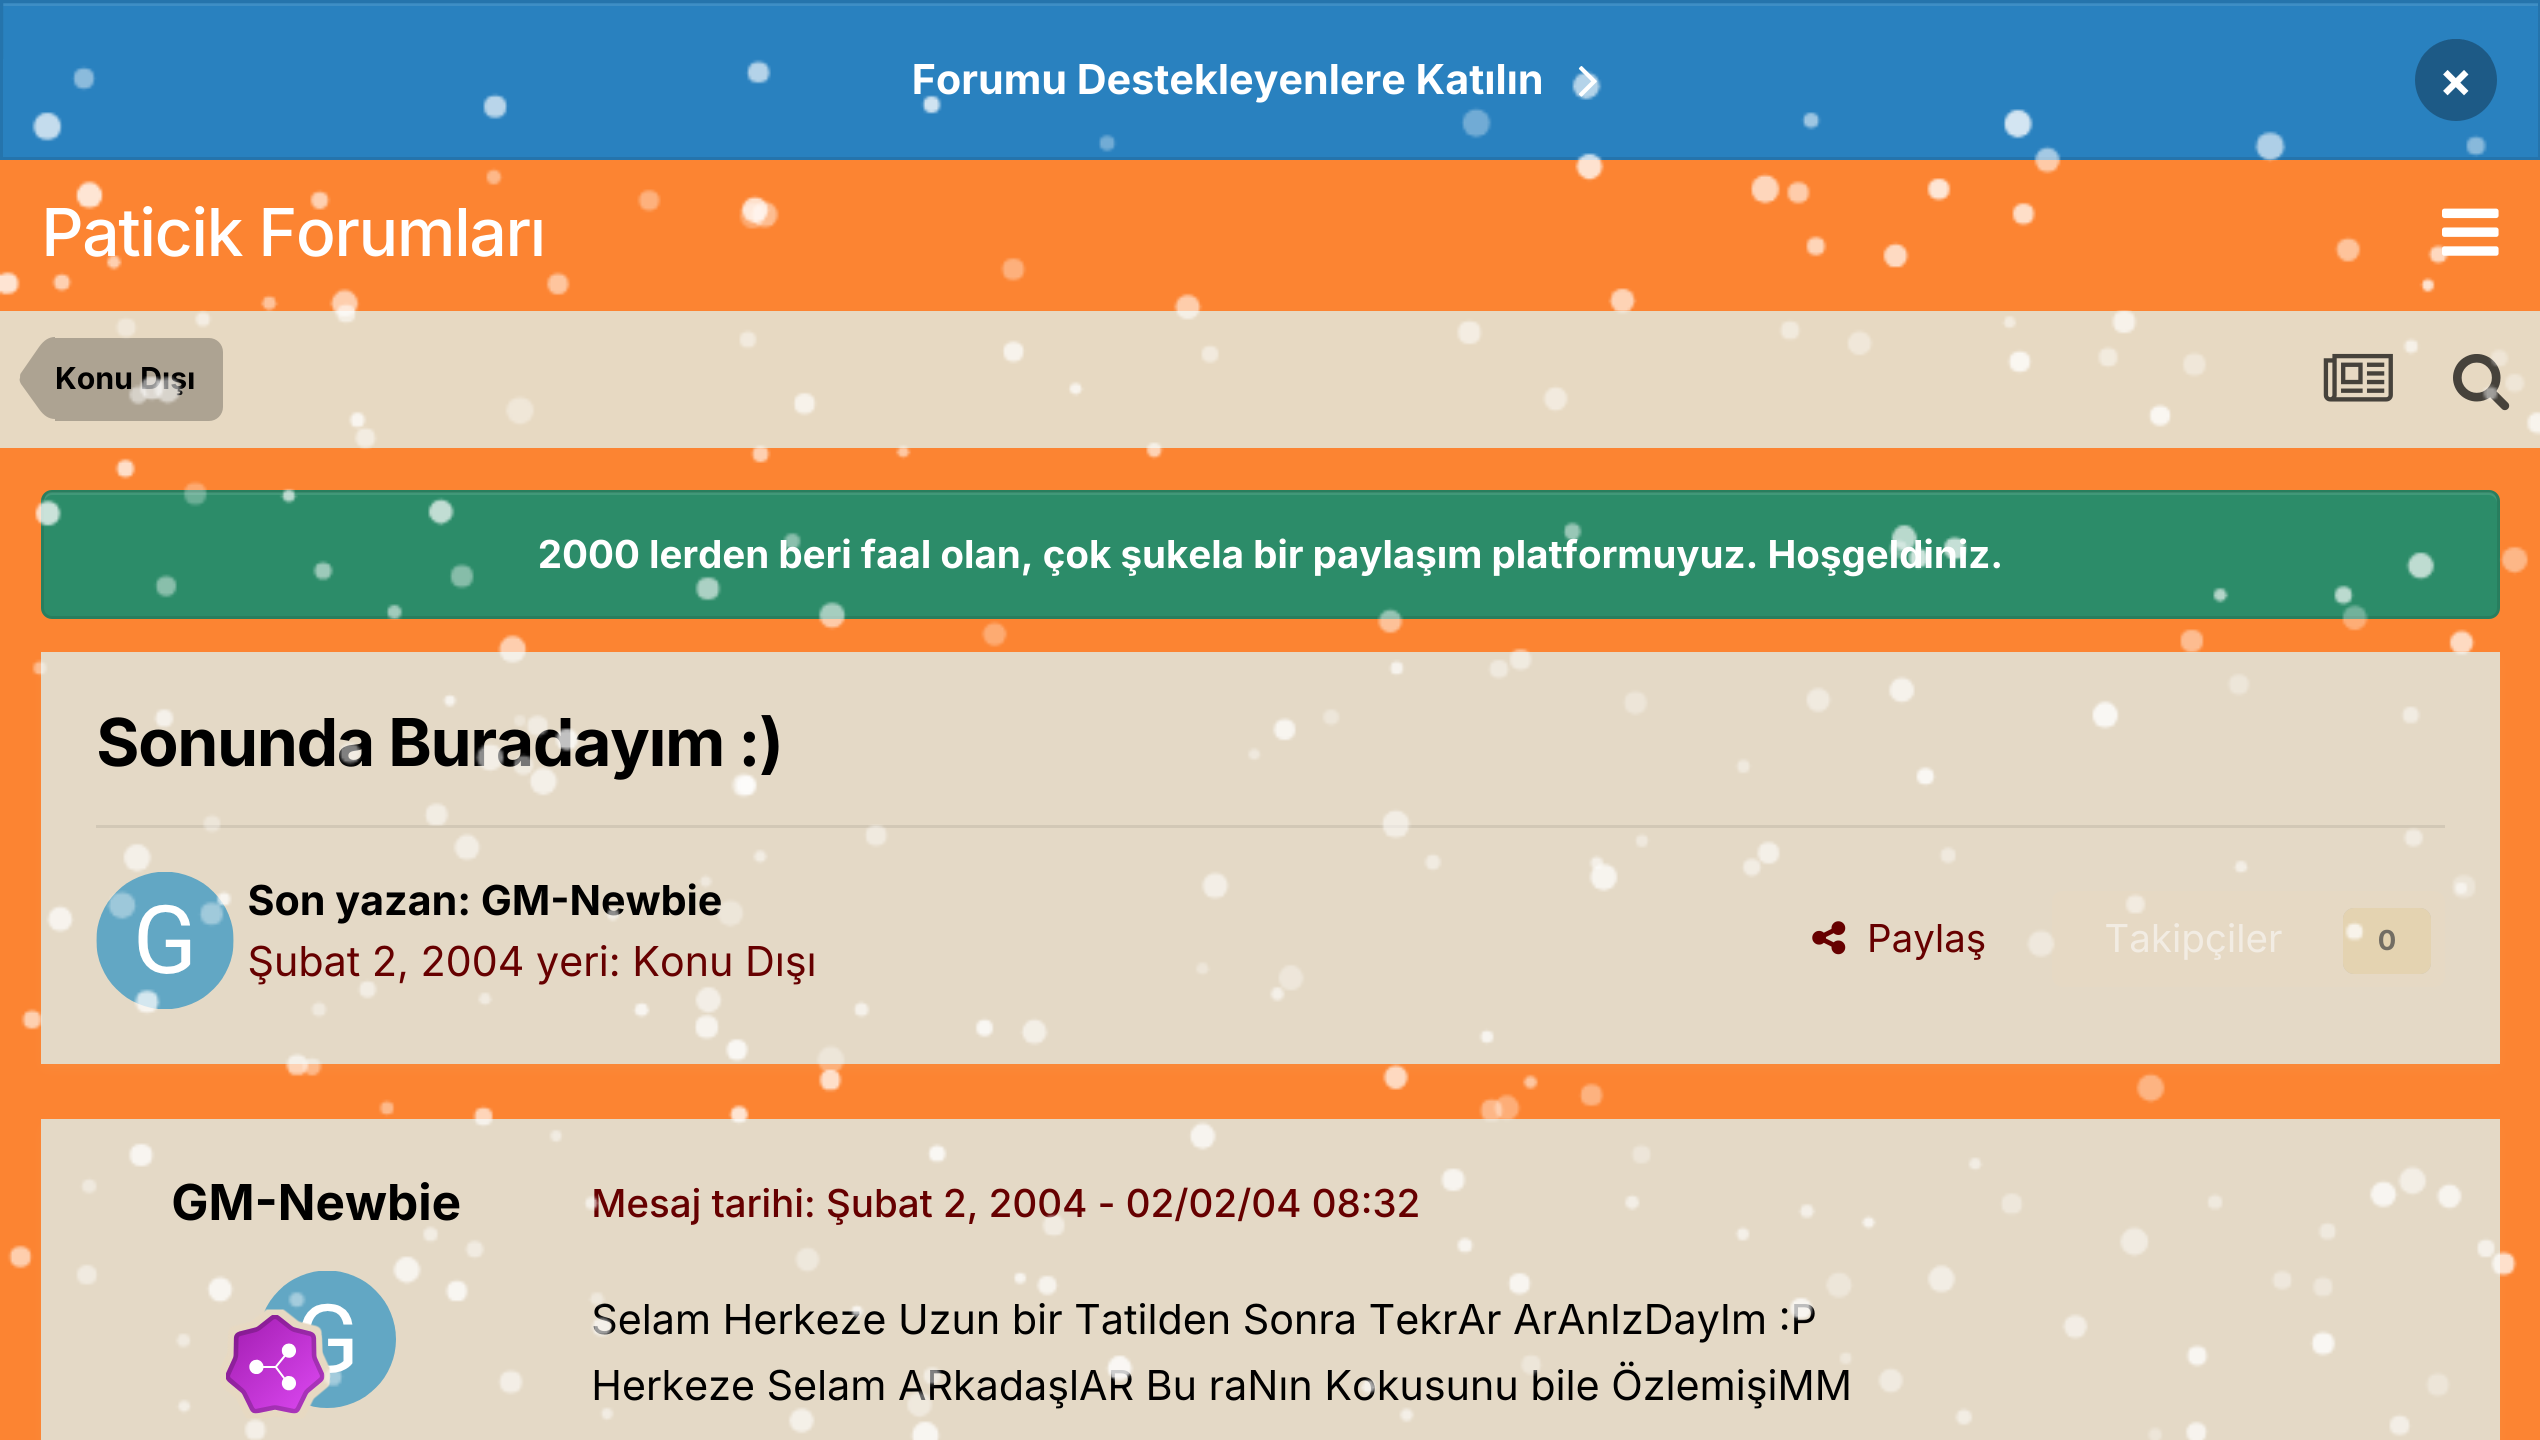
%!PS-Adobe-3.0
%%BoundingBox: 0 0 2540 1440
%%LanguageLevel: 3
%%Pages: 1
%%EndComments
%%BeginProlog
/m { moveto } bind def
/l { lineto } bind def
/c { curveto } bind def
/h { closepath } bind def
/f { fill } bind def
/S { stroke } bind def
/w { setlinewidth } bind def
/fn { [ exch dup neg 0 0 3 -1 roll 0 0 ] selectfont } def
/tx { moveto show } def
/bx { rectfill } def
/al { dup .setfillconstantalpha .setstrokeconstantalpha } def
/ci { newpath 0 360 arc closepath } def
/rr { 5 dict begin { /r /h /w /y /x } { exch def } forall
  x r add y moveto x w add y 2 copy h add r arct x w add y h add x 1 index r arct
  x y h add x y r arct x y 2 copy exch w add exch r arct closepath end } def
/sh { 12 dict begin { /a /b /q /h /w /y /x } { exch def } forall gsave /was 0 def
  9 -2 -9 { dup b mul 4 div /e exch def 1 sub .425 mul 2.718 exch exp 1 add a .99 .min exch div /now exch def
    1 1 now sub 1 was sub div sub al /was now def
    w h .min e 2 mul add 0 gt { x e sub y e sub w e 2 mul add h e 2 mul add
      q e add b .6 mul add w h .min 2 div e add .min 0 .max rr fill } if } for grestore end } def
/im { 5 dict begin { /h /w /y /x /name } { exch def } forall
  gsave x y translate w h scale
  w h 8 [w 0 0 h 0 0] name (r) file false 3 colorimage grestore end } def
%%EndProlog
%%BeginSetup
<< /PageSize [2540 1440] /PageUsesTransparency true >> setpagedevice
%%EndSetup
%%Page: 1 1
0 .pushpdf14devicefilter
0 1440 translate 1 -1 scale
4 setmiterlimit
0.988 0.518 0.196 setrgbcolor
0 0 2540 1440 bx
0.161 0.506 0.749 setrgbcolor
3 6 2535 151 bx
0.243 0.557 0.773 setrgbcolor
3 3 2535 3 bx
0.145 0.455 0.675 setrgbcolor
3 w
1.5 1.5 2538 157 rectstroke
/Inter-Bold 41.25 fn
1 setgray
(Forumu Destekleyenlere Katılın) 912 94 tx
(image1.raw) 1578 66 19 31 im
0.114 0.353 0.525 setrgbcolor
2456 80 41 ci f
/Inter-Bold 49.5 fn
1 setgray
(×) 2439 97 tx
/Inter-Medium 66 fn
41 256 m -1.4 0 (Paticik Forumları) ashow
(image2.raw) 2442 208 57 48 im
0.906 0.851 0.761 setrgbcolor
0 311 2540 137 bx
0.678 0.639 0.573 setrgbcolor
55 338 m 209 338 l 216.5 338 223 344.5 223 352 c 223 407 l 223 414.5 216.5 421 209 421 c 55 421 l h f
55 419 m 49 419 44 416 39 409 c 21 384 l 20 382 19 380 20 378 c 55 378 l h f
55 337 m 55 378 l 20 378 l 20 376 20 374 21 373 c 39 347 l 44 340 49 337 55 337 c h f
/Inter-Bold 30.25 fn
0 setgray
(Konu Dışı) 55 389 tx
(image3.raw) 2323 353 70 49 im
(image4.raw) 2453 354 57 57 im
0.173 0.549 0.412 setrgbcolor
41 490 2459 129 11 rr f
0.255 0.596 0.471 setrgbcolor
52 495 m 2489 495 l 2493 495 2497 499 2497 503 c 2497 498 2495 492 2489 492 c 52 492 l 46 492 44 498 44 503 c 44 499 48 495 52 495 c h f
0.1 al
0 setgray
42.5 491.5 2456 126 9.5 rr S
/Inter-Bold 38.5 fn
1 al
1 setgray
(2000 lerden beri faal olan, çok şukela bir paylaşım platformuyuz. Hoşgeldiniz.) 538 568 tx
0.89 0.804 0.612 setrgbcolor
44 660 2453 407 0 5.5 0.1 sh
0.894 0.851 0.776 setrgbcolor
41 652 2459 412 bx
/Inter-Bold 66 fn
0 setgray
96 766 m -1.3 0 (Sonunda Buradayım :\)) ashow
0.824 0.784 0.714 setrgbcolor
96 825 2349 3 bx
0.906 0.851 0.761 setrgbcolor
96 872 138 137 68.5 rr f
(image5.raw) 96 872 138 137 im
/Inter-Bold 41.25 fn
0 setgray
(Son yazan: GM-Newbie) 248 915 tx
/Inter-Regular 41.25 fn
0.4 0 0 setrgbcolor
(Şubat 2, 2004 yeri: Konu Dışı) 248 976 tx
(image6.raw) 1812 921 34 34 im
/Inter-Regular 38.5 fn
(Paylaş) 1867 952 tx
0.949 0.925 0.89 setrgbcolor
(Takipçiler) 2104 952 tx
0.894 0.827 0.694 setrgbcolor
2343 908 88 66 11 rr f
/Inter-Bold 28 fn
0.447 0.427 0.388 setrgbcolor
(0) 2378 950 tx
0.89 0.804 0.612 setrgbcolor
44 1128 2453 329 0 5.5 0.1 sh
0.894 0.851 0.776 setrgbcolor
41 1119 2459 321 bx
/Inter-Bold 49.5 fn
0 setgray
(GM-Newbie) 171 1220 tx
0.906 0.851 0.761 setrgbcolor
327.5 1339.5 68.5 ci f
(image7.raw) 263 1271 133 137 im
(image8.raw) 220 1309 111 110 im
/Inter-Medium 38.5 fn
0.4 0 0 setrgbcolor
(Mesaj tarihi: Şubat 2, 2004 - 02/02/04 08:32) 591 1217 tx
/Inter-Regular 41.25 fn
0 setgray
(Selam Herkeze Uzun bir Tatilden Sonra TekrAr ArAnIzDayIm :P) 591 1334 tx
(Herkeze Selam ARkadaşlAR Bu raNın Kokusunu bile ÖzlemişiMM) 591 1400 tx
(image0.raw) 0 59 2540 1381 im
.poppdf14devicefilter showpage
%%EOF
